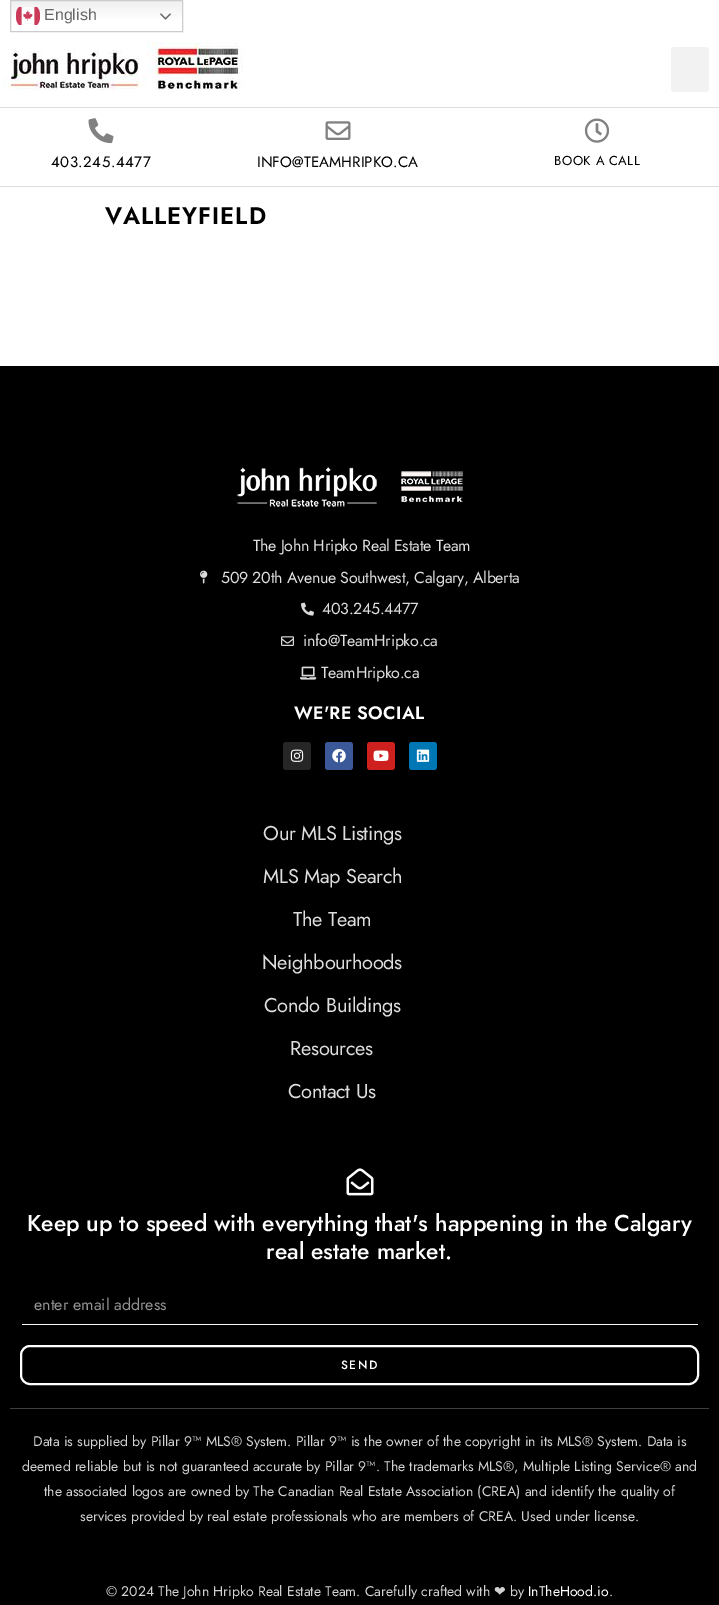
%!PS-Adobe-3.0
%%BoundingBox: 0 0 719 1605
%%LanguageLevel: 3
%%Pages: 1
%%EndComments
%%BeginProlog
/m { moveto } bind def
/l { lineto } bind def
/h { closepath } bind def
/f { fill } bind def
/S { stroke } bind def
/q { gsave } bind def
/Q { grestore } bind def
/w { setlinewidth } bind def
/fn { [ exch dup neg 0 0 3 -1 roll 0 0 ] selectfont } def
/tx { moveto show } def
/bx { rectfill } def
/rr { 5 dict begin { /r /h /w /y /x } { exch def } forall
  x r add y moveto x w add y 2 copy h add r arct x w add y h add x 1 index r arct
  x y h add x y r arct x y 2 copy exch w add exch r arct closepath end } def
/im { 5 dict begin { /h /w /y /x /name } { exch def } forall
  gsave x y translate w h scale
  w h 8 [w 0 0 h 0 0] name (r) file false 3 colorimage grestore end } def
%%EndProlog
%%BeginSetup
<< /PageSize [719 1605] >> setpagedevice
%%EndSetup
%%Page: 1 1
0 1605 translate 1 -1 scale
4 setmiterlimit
1 setgray
0 0 719 1605 bx
q 11 1 m 182 1 l 182 19 l 11 19 l h clip newpath
<< /ShadingType 2 /ColorSpace /DeviceRGB /Coords [97 0 97 32] /Extend [true true] /Function << /FunctionType 3 /Domain [0 1] /Functions [<< /FunctionType 2 /Domain [0 1] /C0 [0.937 0.937 0.937] /C1 [1 1 1] /N 1 >> << /FunctionType 2 /Domain [0 1] /C0 [1 1 1] /C1 [1 1 1] /N 1 >>] /Bounds [0.7] /Encode [0 1 0 1] >> >> shfill Q
0.8 setgray
10.5 0.5 172 31 rectstroke
(image0.raw) 16 7 24 18 im
/LiberationSans-Regular 16 fn
0.4 setgray
(English) 44 20 tx
(image1.raw) 160 13 11 7 im
(image2.raw) 3 42 240 48 im
0.949 setgray
671 47 38 45 3 rr f
0.867 setgray
0 107 719 1 bx
0 186 719 1 bx
(image3.raw) 88 118 26 26 im
/Jost-Regular 15 fn
0 setgray
51 167 m 0.5 0 (403.245.4477) ashow
(image4.raw) 325 121 26 19 im
257 167 m 0.1 0 (INFO@TEAMHRIPKO.CA) ashow
(image5.raw) 584 118 26 25 im
/Jost-Regular 13 fn
554 165 m 0.5 0 (BOOK A CALL) ashow
/Jost-SemiBold 24 fn
105 224 m 1 0 (VALLEYFIELD) ashow
0 366 719 1239 bx
(image6.raw) 237 467 226 40 im
/Jost-Regular 16 fn
0.871 setgray
253 551 m -0.3 0 (The John Hripko Real Estate Team) ashow
(image7.raw) 200 570 8 14 im
221 583 m -0.3 0 (509 20th Avenue Southwest, Calgary, Alberta) ashow
(image8.raw) 301 602 13 14 im
322 614 m -0.3 0 (403.245.4477) ashow
(image9.raw) 281 636 13 10 im
303 646 m -0.3 0 (info@TeamHripko.ca) ashow
(image10.raw) 300 666 17 14 im
321 678 m -0.3 0 (TeamHripko.ca) ashow
/Jost-SemiBold 18 fn
1 setgray
294 719 m 0.25 0 (WE'RE SOCIAL) ashow
0.149 setgray
283 742 28 28 3 rr f
(image11.raw) 290 749 14 13 im
0.231 0.349 0.596 setrgbcolor
325 742 28 28 3 rr f
(image12.raw) 332 749 14 14 im
0.804 0.125 0.122 setrgbcolor
367 742 28 28 3 rr f
(image13.raw) 373 750 16 11 im
0 0.467 0.71 setrgbcolor
409 742 28 28 3 rr f
(image14.raw) 416 749 14 13 im
/Jost-Regular 20 fn
0.871 setgray
263 840 m -0.3 0 (Our MLS Listings) ashow
263 883 m -0.3 0 (MLS Map Search) ashow
293 926 m -0.3 0 (The Team) ashow
262 969 m -0.3 0 (Neighbourhoods) ashow
264 1012 m -0.3 0 (Condo Buildings) ashow
290 1055 m -0.3 0 (Resources) ashow
288 1098 m -0.3 0 (Contact Us) ashow
(image15.raw) 346 1168 28 28 im
/Jost-Medium 23 fn
1 setgray
(Keep up to speed with everything that's happening in the Calgary) 27 1231 tx
(real estate market.) 266 1259 tx
0.969 setgray
22 1324 676 1 bx
/Jost-Regular 16 fn
0.576 setgray
(enter email address) 34 1310 tx
1 setgray
2 w
21 1346 677 38 9 rr S
/Jost-Medium 12 fn
341 1369 m 1.5 0 (SEND) ashow
0.247 setgray
10 1408 699 1 bx
/Jost-Regular 14 fn
0.824 setgray
(Data is supplied by Pillar 9™ MLS® System. Pillar 9™ is the owner of the copyright in its MLS® System. Data is) 33 1446 tx
(deemed reliable but is not guaranteed accurate by Pillar 9™. The trademarks MLS®, Multiple Listing Service® and) 22 1471 tx
(the associated logos are owned by The Canadian Real Estate Association \(CREA\) and identify the quality of) 44 1496 tx
(services provided by real estate professionals who are members of CREA. Used under license.) 80 1521 tx
(© 2024 The John Hripko Real Estate Team. Carefully crafted with) 106 1596 tx
/DejaVuSans-Regular 14 fn
(❤) 494 1596 tx
/Jost-Regular 14 fn
(by) 510 1596 tx
1 setgray
(InTheHood.io) 528 1596 tx
0.824 setgray
(.) 609 1596 tx
showpage
%%EOF
